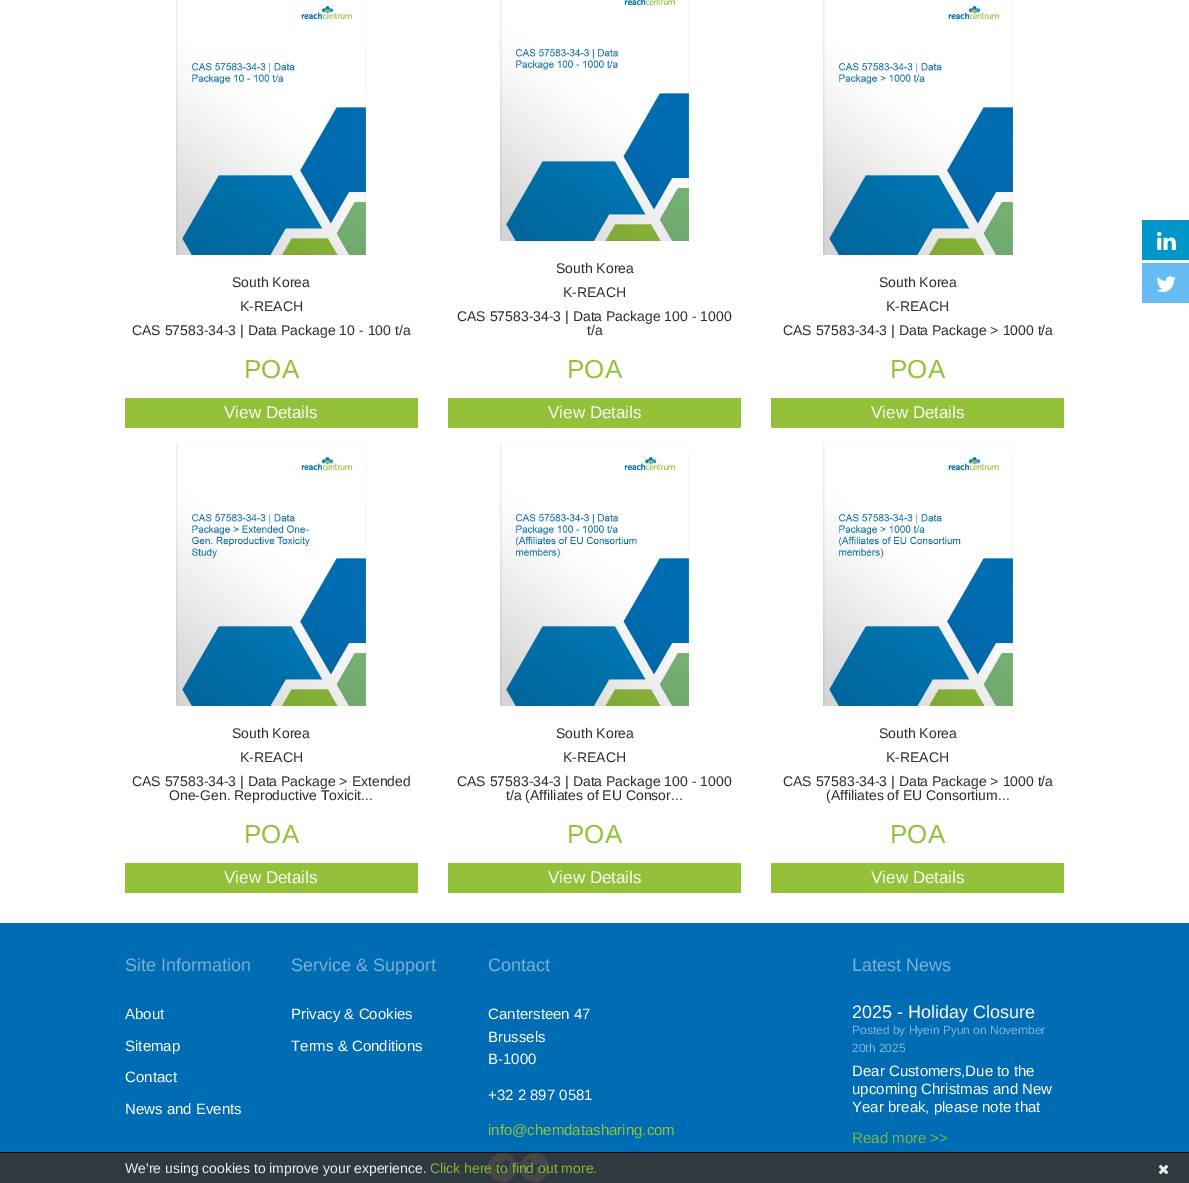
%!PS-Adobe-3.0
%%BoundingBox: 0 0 1189 1183
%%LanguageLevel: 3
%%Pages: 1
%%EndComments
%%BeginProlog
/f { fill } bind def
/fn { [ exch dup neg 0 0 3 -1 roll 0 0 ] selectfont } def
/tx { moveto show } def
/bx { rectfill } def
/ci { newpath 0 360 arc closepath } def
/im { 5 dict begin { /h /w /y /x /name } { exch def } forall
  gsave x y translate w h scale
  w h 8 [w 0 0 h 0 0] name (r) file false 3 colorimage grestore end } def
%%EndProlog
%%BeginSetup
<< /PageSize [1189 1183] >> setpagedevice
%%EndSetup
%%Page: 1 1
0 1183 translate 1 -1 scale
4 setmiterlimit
1 setgray
0 0 1189 1183 bx
0 0.588 0.792 setrgbcolor
1142 220 47 40 bx
(image0.raw) 1157 232 19 18 im
(image1.raw) 176 0 190 255 im
/LiberationSans-Regular 14 fn
0.176 setgray
(South Korea) 232 287 tx
(K-REACH) 240 311 tx
(CAS 57583-34-3 | Data Package 10 - 100 t/a) 132 335 tx
/LiberationSans-Regular 26 fn
0.576 0.757 0.224 setrgbcolor
(POA) 244 378 tx
125 398 293 30 bx
/LiberationSans-Regular 17 fn
1 setgray
(View Details) 224 418 tx
(image2.raw) 500 0 189 241 im
/LiberationSans-Regular 14 fn
0.176 setgray
(South Korea) 556 273 tx
(K-REACH) 563 297 tx
(CAS 57583-34-3 | Data Package 100 - 1000) 457 321 tx
(t/a) 587 335 tx
/LiberationSans-Regular 26 fn
0.576 0.757 0.224 setrgbcolor
(POA) 567 378 tx
448 398 293 30 bx
/LiberationSans-Regular 17 fn
1 setgray
(View Details) 548 418 tx
(image3.raw) 823 0 190 255 im
/LiberationSans-Regular 14 fn
0.176 setgray
(South Korea) 879 287 tx
(K-REACH) 886 311 tx
(CAS 57583-34-3 | Data Package > 1000 t/a) 783 335 tx
/LiberationSans-Regular 26 fn
0.576 0.757 0.224 setrgbcolor
(POA) 890 378 tx
771 398 293 30 bx
/LiberationSans-Regular 17 fn
1 setgray
(View Details) 871 418 tx
(image4.raw) 176 443 190 263 im
/LiberationSans-Regular 14 fn
0.176 setgray
(South Korea) 232 738 tx
(K-REACH) 240 762 tx
(CAS 57583-34-3 | Data Package > Extended) 132 786 tx
(One-Gen. Reproductive Toxicit...) 169 800 tx
/LiberationSans-Regular 26 fn
0.576 0.757 0.224 setrgbcolor
(POA) 244 843 tx
125 863 293 30 bx
/LiberationSans-Regular 17 fn
1 setgray
(View Details) 224 883 tx
(image5.raw) 500 443 189 263 im
/LiberationSans-Regular 14 fn
0.176 setgray
(South Korea) 556 738 tx
(K-REACH) 563 762 tx
(CAS 57583-34-3 | Data Package 100 - 1000) 457 786 tx
(t/a \(Affiliates of EU Consor...) 506 800 tx
/LiberationSans-Regular 26 fn
0.576 0.757 0.224 setrgbcolor
(POA) 567 843 tx
448 863 293 30 bx
/LiberationSans-Regular 17 fn
1 setgray
(View Details) 548 883 tx
(image6.raw) 823 443 190 263 im
/LiberationSans-Regular 14 fn
0.176 setgray
(South Korea) 879 738 tx
(K-REACH) 886 762 tx
(CAS 57583-34-3 | Data Package > 1000 t/a) 783 786 tx
(\(Affiliates of EU Consortium...) 826 800 tx
/LiberationSans-Regular 26 fn
0.576 0.757 0.224 setrgbcolor
(POA) 890 843 tx
771 863 293 30 bx
/LiberationSans-Regular 17 fn
1 setgray
(View Details) 871 883 tx
0.396 0.733 0.949 setrgbcolor
1142 263 47 40 bx
(image7.raw) 1156 276 20 16 im
0 0.424 0.706 setrgbcolor
0 923 1189 229 bx
0.18 0.224 0.251 setrgbcolor
0 1153 1189 30 bx
/LiberationSans-Regular 18 fn
0.486 0.69 0.831 setrgbcolor
(Site Information) 125 971 tx
/LiberationSans-Regular 15 fn
1 setgray
(About) 125 1019 tx
(Sitemap) 125 1051 tx
(Contact) 125 1082 tx
(News and Events) 125 1114 tx
/LiberationSans-Regular 18 fn
0.486 0.69 0.831 setrgbcolor
(Service & Support) 291 971 tx
/LiberationSans-Regular 15 fn
1 setgray
(Privacy & Cookies) 291 1019 tx
(Terms & Conditions) 291 1051 tx
/LiberationSans-Regular 18 fn
0.486 0.69 0.831 setrgbcolor
(Contact) 488 971 tx
/LiberationSans-Regular 15 fn
1 setgray
(Cantersteen 47) 488 1019 tx
(Brussels) 488 1042 tx
(B-1000) 488 1064 tx
(+32 2 897 0581) 488 1100 tx
0.576 0.757 0.224 setrgbcolor
(info@chemdatasharing.com) 488 1135 tx
0.278 setgray
502.5 1167.5 14.5 ci f
(image8.raw) 494 1160 17 14 im
534.5 1167.5 14.5 ci f
(image9.raw) 527 1159 17 16 im
/LiberationSans-Regular 18 fn
0.486 0.69 0.831 setrgbcolor
(Latest News) 852 971 tx
1 setgray
(2025 - Holiday Closure) 852 1018 tx
/LiberationSans-Regular 12 fn
0.502 0.714 0.855 setrgbcolor
(Posted by Hyein Pyun on November) 852 1034 tx
(20th 2025) 852 1052 tx
/LiberationSans-Regular 15 fn
1 setgray
(Dear Customers,Due to the) 852 1076 tx
(upcoming Christmas and New) 852 1094 tx
(Year break, please note that) 852 1112 tx
0.49 0.706 0.294 setrgbcolor
(Read more >>) 852 1143 tx
0 0.043 0.071 setrgbcolor
0 1152 1189 1 bx
/LiberationSans-Regular 14 fn
0.902 0.941 0.973 setrgbcolor
(We're using cookies to improve your experience.) 125 1173 tx
0.537 0.706 0.227 setrgbcolor
(Click here to find out more.) 430 1173 tx
(image10.raw) 1158 1164 11 11 im
showpage
%%EOF
